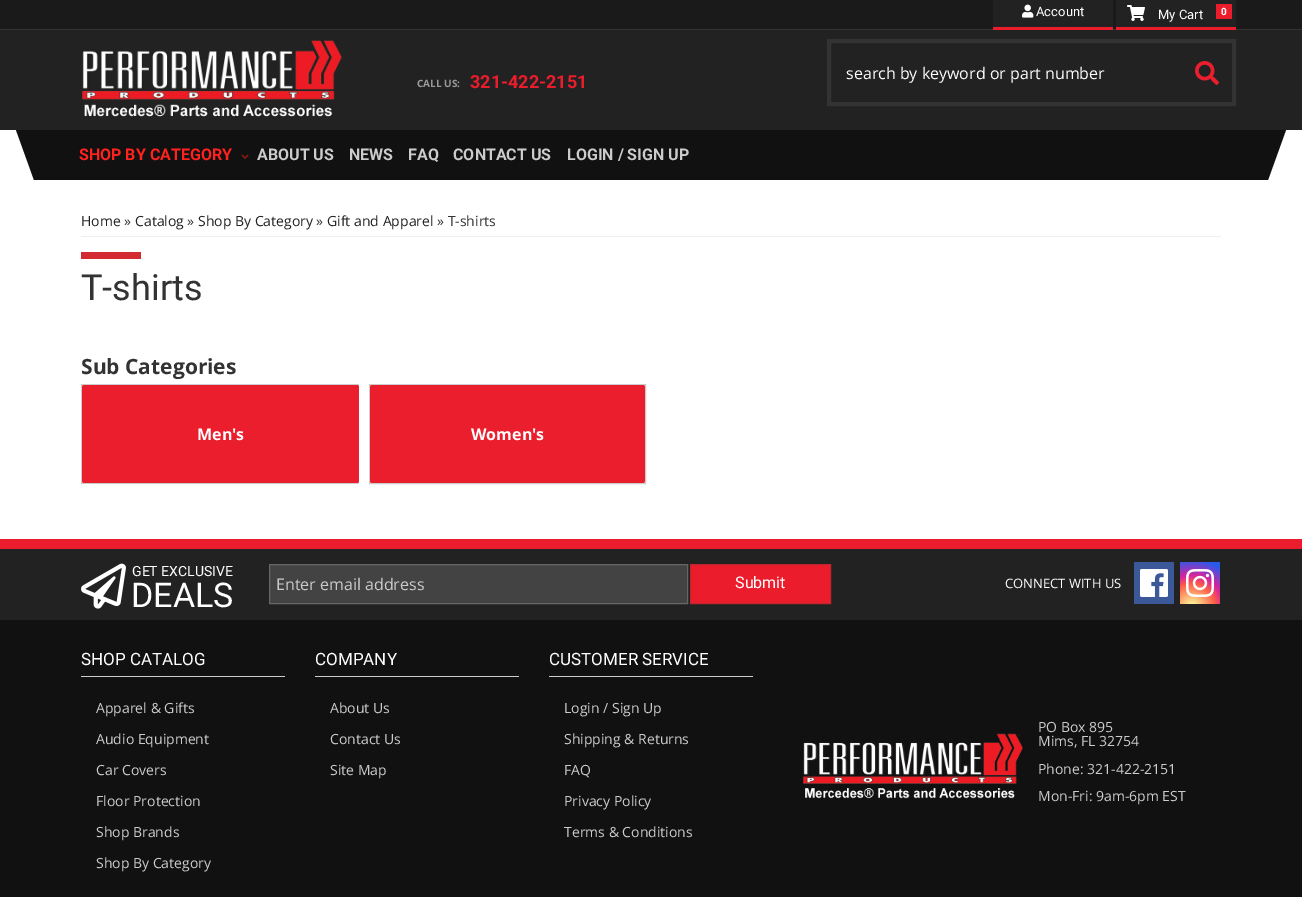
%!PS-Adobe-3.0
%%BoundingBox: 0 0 1302 897
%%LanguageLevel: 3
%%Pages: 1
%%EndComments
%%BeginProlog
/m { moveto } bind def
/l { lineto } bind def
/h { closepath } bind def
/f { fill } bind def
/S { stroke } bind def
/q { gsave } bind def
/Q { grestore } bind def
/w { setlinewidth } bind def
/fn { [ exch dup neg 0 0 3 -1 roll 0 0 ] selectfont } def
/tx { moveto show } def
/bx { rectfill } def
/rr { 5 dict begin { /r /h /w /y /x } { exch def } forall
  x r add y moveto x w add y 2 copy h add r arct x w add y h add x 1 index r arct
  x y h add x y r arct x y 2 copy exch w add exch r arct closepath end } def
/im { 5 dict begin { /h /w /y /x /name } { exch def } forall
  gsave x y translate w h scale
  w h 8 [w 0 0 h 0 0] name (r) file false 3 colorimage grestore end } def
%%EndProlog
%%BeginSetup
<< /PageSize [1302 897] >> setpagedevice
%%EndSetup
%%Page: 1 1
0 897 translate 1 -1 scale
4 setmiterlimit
1 setgray
0 0 1302 897 bx
0.102 setgray
0 0 1302 29 bx
0.2 setgray
0 29 1302 1 bx
0.133 setgray
0 30 1302 100 bx
993 0 120 27 bx
0.922 0.114 0.176 setrgbcolor
993 27 120 3 bx
(image0.raw) 1022 4 12 14 im
/Roboto-Regular 13 fn
1 setgray
(Account) 1036 16 tx
0.133 setgray
1116 0 120 27 bx
0.922 0.114 0.176 setrgbcolor
1116 27 120 3 bx
(image1.raw) 1127 5 18 16 im
1 setgray
(My Cart) 1158 19 tx
0.922 0.114 0.176 setrgbcolor
1216 4 16 15 bx
/Roboto-Bold 10 fn
1 setgray
(0) 1221 15 tx
(image2.raw) 82 40 260 77 im
/OpenSans-Bold 10 fn
0.6 setgray
(CALL US:) 417 87 tx
/Roboto-Bold 18 fn
0.922 0.114 0.176 setrgbcolor
(321-422-2151) 470 88 tx
0.2 setgray
4 w
829 41 405 63 rectstroke
/OpenSans-Regular 16 fn
1 setgray
(search by keyword or part number) 846 79 tx
(image3.raw) 1195 61 24 24 im
0.067 setgray
66 130 1170 50 bx
16 130 m 66 130 l 84 180 l 34 180 l h f
/Roboto-Bold 16 fn
1 0.133 0.114 setrgbcolor
(SHOP BY CATEGORY) 79 160 tx
(image4.raw) 241 154 8 5 im
0.8 setgray
(ABOUT US) 257 160 tx
(NEWS) 349 160 tx
(FAQ) 408 160 tx
(CONTACT US) 453 160 tx
(LOGIN / SIGN UP) 567 160 tx
0.067 setgray
1236 130 m 1286 130 l 1268 180 l 1218 180 l h f
0.933 setgray
81 236 1140 1 bx
/OpenSans-Regular 14 fn
0.133 setgray
(Home) 81 226 tx
0.2 setgray
(») 124 226 tx
0.133 setgray
(Catalog) 135 226 tx
0.2 setgray
(») 187 226 tx
0.133 setgray
(Shop By Category) 198 226 tx
0.2 setgray
(») 316 226 tx
0.133 setgray
(Gift and Apparel) 327 226 tx
0.2 setgray
(» T-shirts) 437 226 tx
0.827 0.161 0.192 setrgbcolor
81 252 60 7 bx
/Roboto-Regular 36 fn
0.2 setgray
(T-shirts) 81 300 tx
/OpenSans-Bold 21 fn
(Sub Categories) 81 374 tx
0.8 setgray
81 384 278 1 bx
81 483 278 1 bx
81 384 1 100 bx
0.922 0.118 0.18 setrgbcolor
82 385 277 98 2 rr f
/OpenSans-Bold 16 fn
1 setgray
(Men's) 197 440 tx
0.8 setgray
1 w
369.5 384.5 276 99 rectstroke
0.922 0.118 0.18 setrgbcolor
370 385 275 98 2 rr f
1 setgray
(Women's) 471 440 tx
0.133 setgray
0 549 1302 71 bx
0.922 0.114 0.176 setrgbcolor
0 539 1302 10 bx
(image5.raw) 81 563 45 46 im
/Roboto-Regular 14 fn
1 setgray
(GET EXCLUSIVE) 132 576 tx
/Roboto-Regular 34 fn
(DEALS) 131 607 tx
0.263 setgray
269.5 564.5 m 687.5 564.5 l 687.5 603.5 l 269.5 603.5 l h q f Q
0.4 setgray
S
/OpenSans-Regular 16 fn
0.8 setgray
(Enter email address) 276 590 tx
0.922 0.114 0.176 setrgbcolor
690.5 564.5 m 830.5 564.5 l 830.5 603.5 l 690.5 603.5 l h q f Q
0.745 0.145 0.173 setrgbcolor
S
/Roboto-Regular 16 fn
1 setgray
(Submit) 735 588 tx
/OpenSans-Regular 13 fn
(CONNECT WITH US) 1005 588 tx
0.231 0.349 0.596 setrgbcolor
1134 562 40 42 bx
(image6.raw) 1140 569 28 28 im
q 1180 562 m 1220 562 l 1220 604 l 1180 604 l h clip newpath 1192 607 translate 53 53 scale
<< /ShadingType 3 /ColorSpace /DeviceRGB /Coords [0 0 0 0 0 1] /Extend [true true] /Function << /FunctionType 3 /Domain [0 1] /Functions [<< /FunctionType 2 /Domain [0 1] /C0 [0.992 0.957 0.592] /C1 [0.992 0.957 0.592] /N 1 >> << /FunctionType 2 /Domain [0 1] /C0 [0.992 0.957 0.592] /C1 [0.992 0.349 0.286] /N 1 >> << /FunctionType 2 /Domain [0 1] /C0 [0.992 0.349 0.286] /C1 [0.839 0.141 0.624] /N 1 >> << /FunctionType 2 /Domain [0 1] /C0 [0.839 0.141 0.624] /C1 [0.157 0.353 0.922] /N 1 >> << /FunctionType 2 /Domain [0 1] /C0 [0.157 0.353 0.922] /C1 [0.157 0.353 0.922] /N 1 >>] /Bounds [0.05 0.45 0.6 0.9] /Encode [0 1 0 1 0 1 0 1 0 1] >> >> shfill Q
(image7.raw) 1186 569 28 28 im
0.067 setgray
0 620 1302 277 bx
0.8 setgray
81 676 204 1 bx
/Roboto-Regular 17 fn
1 setgray
(SHOP CATALOG) 81 665 tx
/OpenSans-Regular 14 fn
0.8 setgray
(Apparel & Gifts) 96 713 tx
(Audio Equipment) 96 744 tx
(Car Covers) 96 775 tx
(Floor Protection) 96 806 tx
(Shop Brands) 96 837 tx
(Shop By Category) 96 868 tx
315 676 204 1 bx
/Roboto-Regular 17 fn
1 setgray
(COMPANY) 315 665 tx
/OpenSans-Regular 14 fn
0.8 setgray
(About Us) 330 713 tx
(Contact Us) 330 744 tx
(Site Map) 330 775 tx
549 676 204 1 bx
/Roboto-Regular 17 fn
1 setgray
(CUSTOMER SERVICE) 549 665 tx
/OpenSans-Regular 14 fn
0.8 setgray
(Login / Sign Up) 564 713 tx
(Shipping & Returns) 564 744 tx
(FAQ) 564 775 tx
(Privacy Policy) 564 806 tx
(Terms & Conditions) 564 837 tx
(image8.raw) 803 733 220 66 im
(PO Box 895) 1038 732 tx
(Mims, FL 32754) 1038 746 tx
(Phone: 321-422-2151) 1038 774 tx
(Mon-Fri: 9am-6pm EST) 1038 801 tx
showpage
%%EOF
